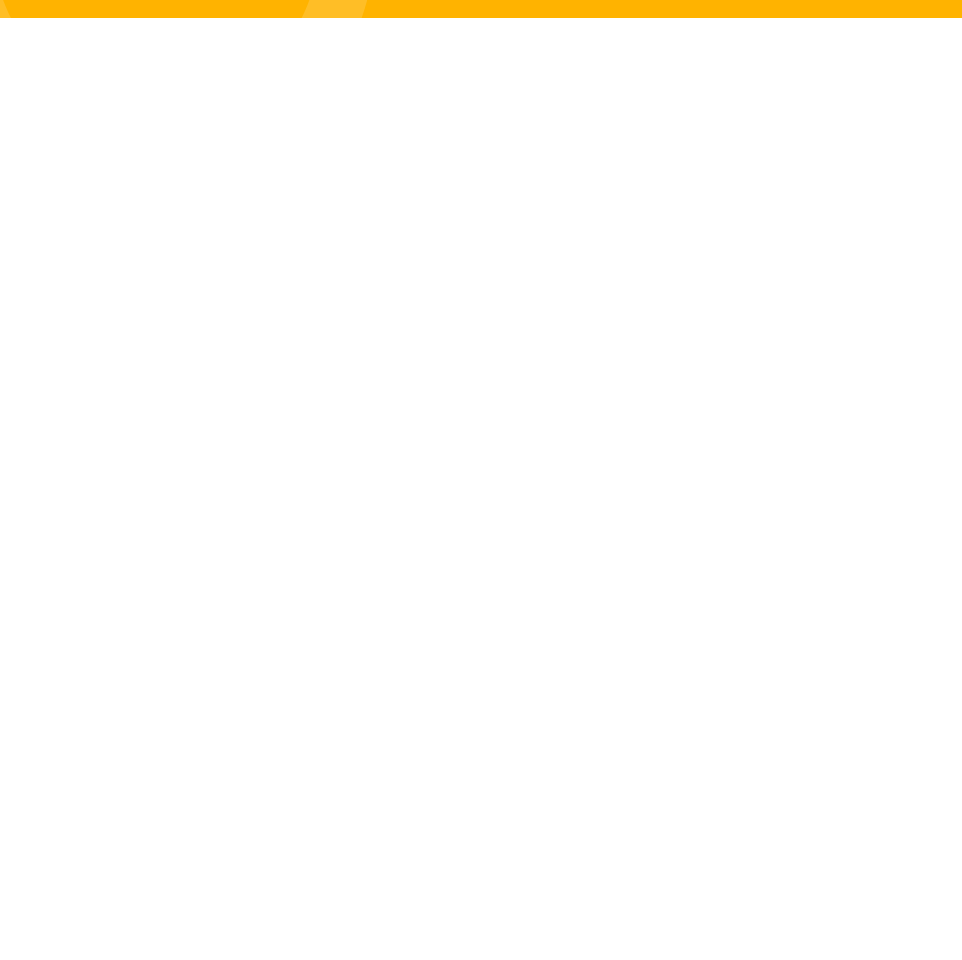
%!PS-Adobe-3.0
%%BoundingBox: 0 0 962 960
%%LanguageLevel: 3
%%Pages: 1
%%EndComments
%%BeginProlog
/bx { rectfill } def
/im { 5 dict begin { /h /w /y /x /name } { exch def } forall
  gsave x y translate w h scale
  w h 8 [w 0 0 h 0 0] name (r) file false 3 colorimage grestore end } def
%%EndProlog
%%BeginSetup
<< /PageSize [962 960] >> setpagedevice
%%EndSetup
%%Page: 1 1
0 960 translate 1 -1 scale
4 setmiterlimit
1 setgray
0 0 962 960 bx
1 0.702 0 setrgbcolor
0 0 962 18 bx
(image0.raw) 0 0 367 18 im
showpage
%%EOF
